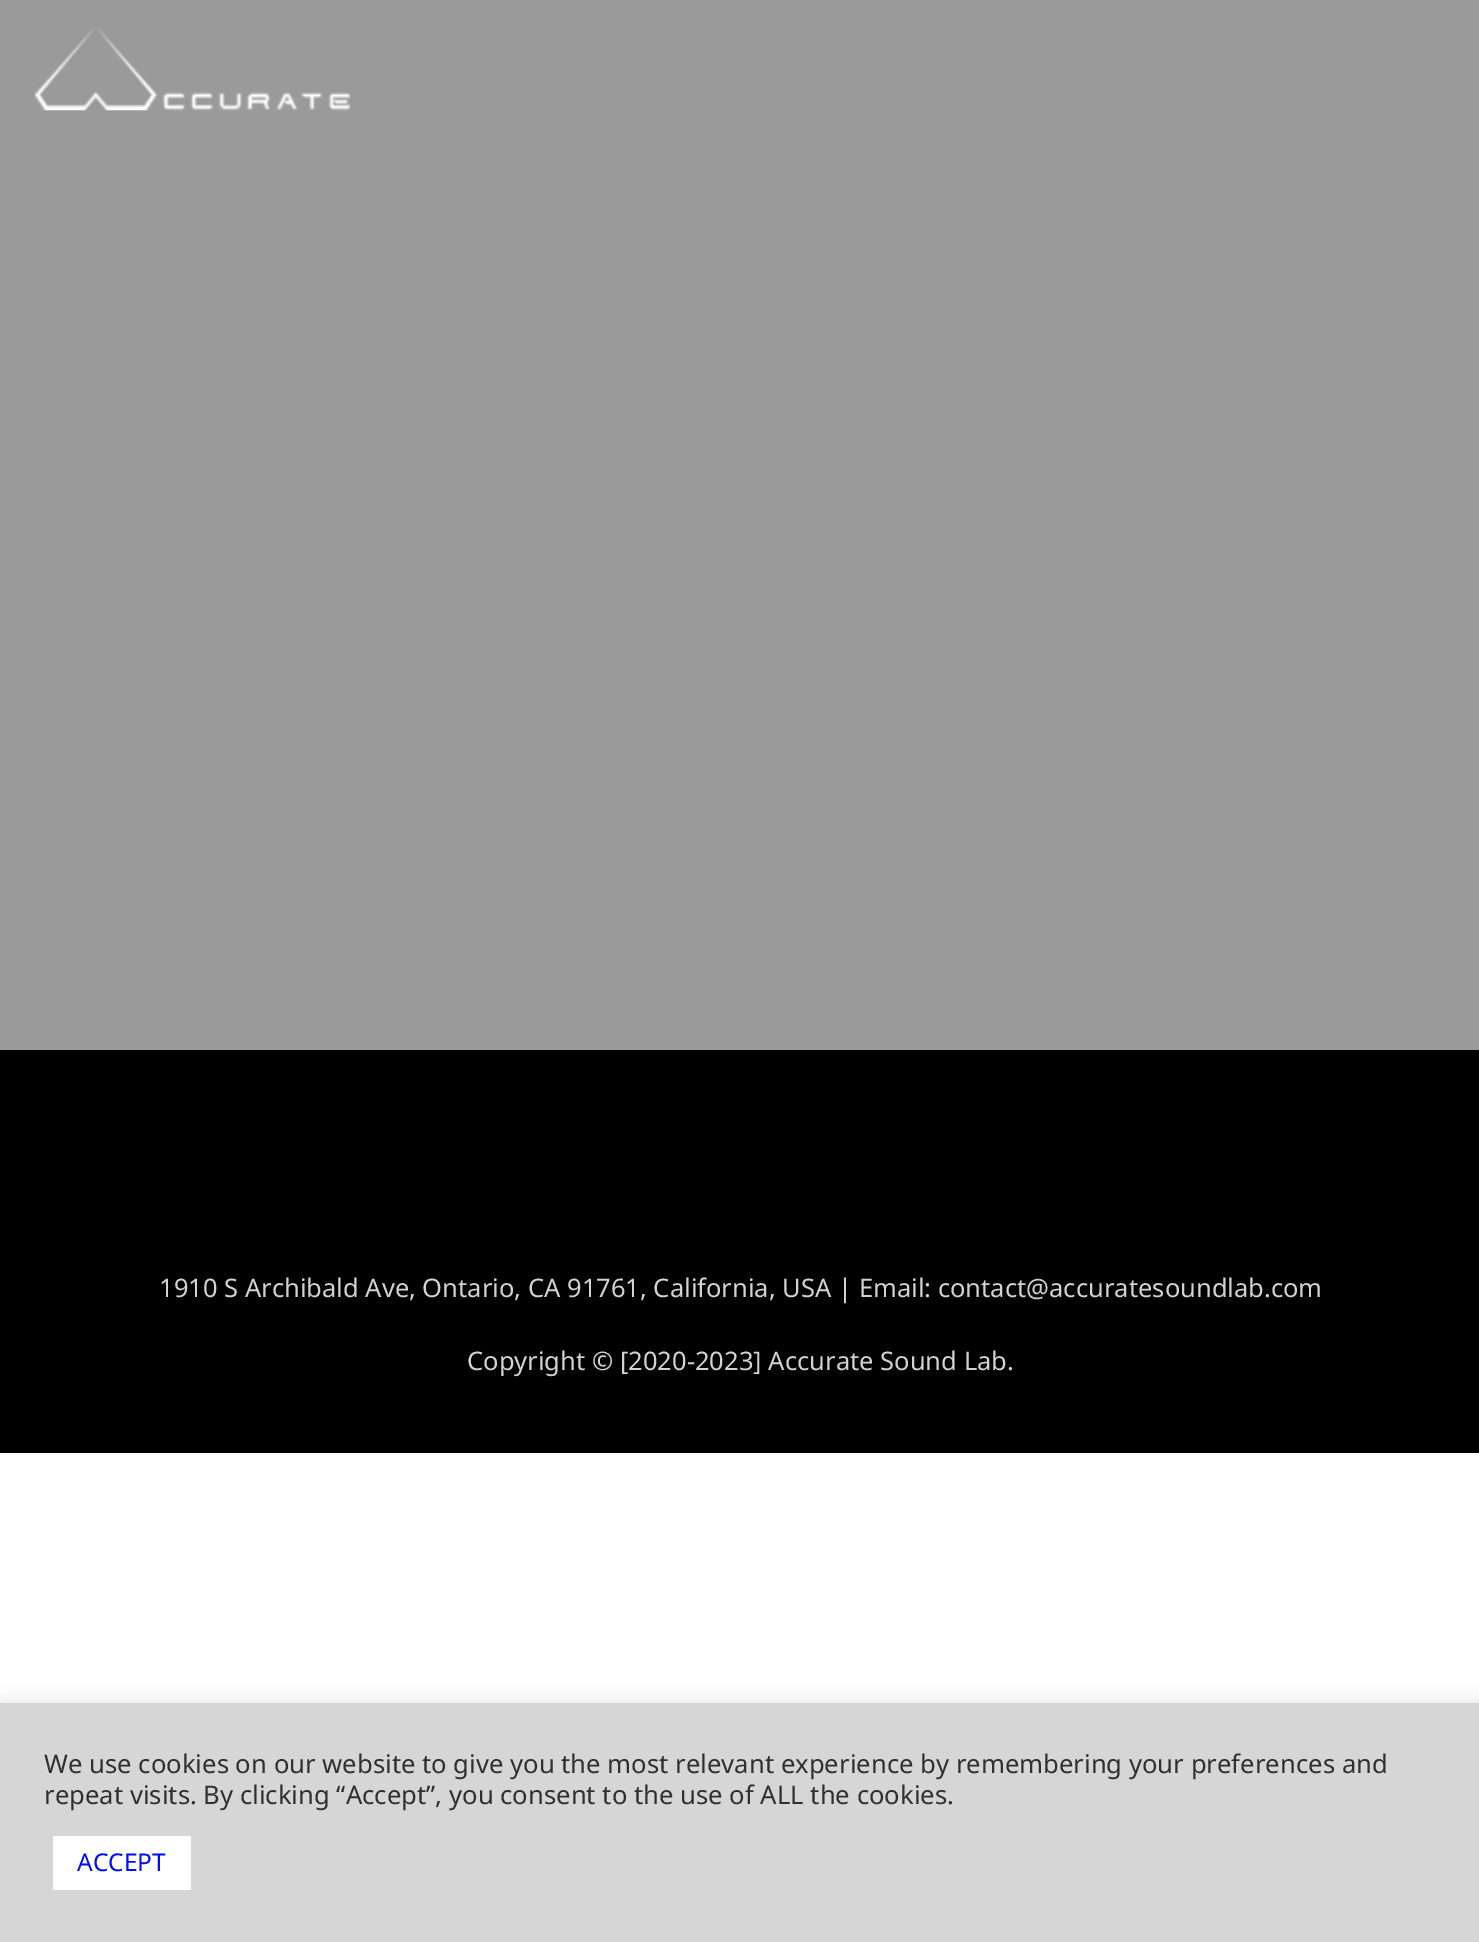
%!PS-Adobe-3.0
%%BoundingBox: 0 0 1479 1942
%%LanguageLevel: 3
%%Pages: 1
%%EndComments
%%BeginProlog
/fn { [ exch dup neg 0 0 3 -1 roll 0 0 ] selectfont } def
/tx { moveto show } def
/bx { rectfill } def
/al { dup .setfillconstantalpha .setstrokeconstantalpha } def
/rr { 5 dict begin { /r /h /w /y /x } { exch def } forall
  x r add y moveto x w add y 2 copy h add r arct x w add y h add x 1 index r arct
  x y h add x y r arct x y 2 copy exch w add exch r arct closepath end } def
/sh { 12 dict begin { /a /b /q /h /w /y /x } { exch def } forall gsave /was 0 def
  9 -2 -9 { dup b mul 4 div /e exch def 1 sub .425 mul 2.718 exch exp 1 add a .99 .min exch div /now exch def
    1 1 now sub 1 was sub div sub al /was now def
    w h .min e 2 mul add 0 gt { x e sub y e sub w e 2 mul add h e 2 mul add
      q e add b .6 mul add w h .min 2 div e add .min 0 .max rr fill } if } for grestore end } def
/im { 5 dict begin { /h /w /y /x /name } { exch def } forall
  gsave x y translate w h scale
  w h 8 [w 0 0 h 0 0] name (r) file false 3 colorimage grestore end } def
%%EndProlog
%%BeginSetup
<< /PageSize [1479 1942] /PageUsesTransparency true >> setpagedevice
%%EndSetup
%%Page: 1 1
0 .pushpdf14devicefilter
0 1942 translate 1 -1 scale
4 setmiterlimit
1 setgray
0 0 1479 1942 bx
0.604 setgray
0 0 1479 1050 bx
0 setgray
0 1050 1479 403 bx
(image0.raw) 35 28 315 83 im
/NotoSans-Regular 25.55 fn
0.827 setgray
(1910 S Archibald Ave, Ontario, CA 91761, California, USA | Email: contact@accuratesoundlab.com) 159 1297 tx
(Copyright © [2020-2023] Accurate Sound Lab.) 467 1370 tx
0.675 0.671 0.671 setrgbcolor
0 1701 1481 240 0 9 0.3 sh
0.839 setgray
0 1703 1479 239 bx
/NotoSans-Regular 25.67 fn
0.188 setgray
(We use cookies on our website to give you the most relevant experience by remembering your preferences and) 44 1773 tx
(repeat visits. By clicking “Accept”, you consent to the use of ALL the cookies.) 44 1804 tx
1 setgray
53 1836 138 54 bx
/NotoSans-Regular 24.5 fn
0 0.047 1 setrgbcolor
(ACCEPT) 77 1871 tx
.poppdf14devicefilter showpage
%%EOF
